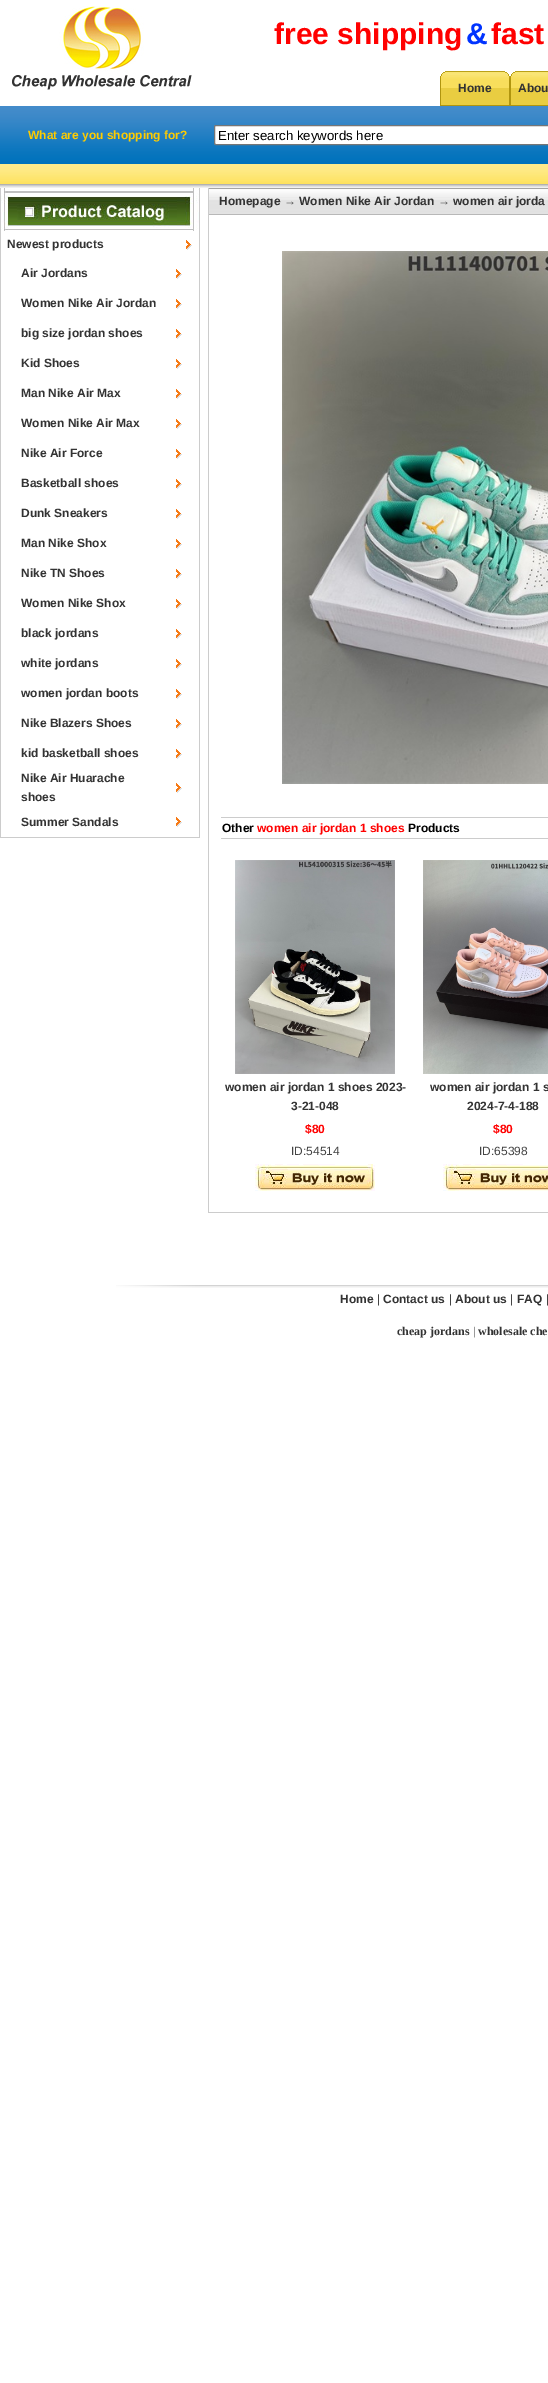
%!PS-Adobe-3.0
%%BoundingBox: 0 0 548 2383
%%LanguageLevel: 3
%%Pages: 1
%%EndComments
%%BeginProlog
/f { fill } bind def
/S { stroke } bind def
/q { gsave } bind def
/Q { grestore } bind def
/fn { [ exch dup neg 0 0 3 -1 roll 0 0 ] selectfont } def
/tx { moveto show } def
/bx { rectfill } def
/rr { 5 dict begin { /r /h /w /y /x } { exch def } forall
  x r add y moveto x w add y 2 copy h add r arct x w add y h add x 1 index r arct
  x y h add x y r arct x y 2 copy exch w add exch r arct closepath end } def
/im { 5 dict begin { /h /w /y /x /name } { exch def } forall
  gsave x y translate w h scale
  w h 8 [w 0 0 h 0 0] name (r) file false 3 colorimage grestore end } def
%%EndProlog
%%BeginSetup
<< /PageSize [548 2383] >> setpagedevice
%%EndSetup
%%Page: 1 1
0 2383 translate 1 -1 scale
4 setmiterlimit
1 setgray
0 0 548 2383 bx
(image0.raw) 12 6 180 84 im
/LiberationSans-Bold 30 fn
1 0 0 setrgbcolor
(free shipping) 274 44 tx
0 0.2 1 setrgbcolor
(&) 466 44 tx
1 0 0 setrgbcolor
(fast) 491 44 tx
(image1.raw) 440 71 108 35 im
/LiberationSans-Bold 12 fn
0.2 setgray
(Home) 458 92 tx
(Abou) 518 92 tx
(image2.raw) 0 106 548 58 im
1 0.8 0 setrgbcolor
(What are you shopping for?) 28 139 tx
1 setgray
214.5 125.5 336 19 1.5 rr q f Q
0.463 setgray
S
/LiberationSans-Regular 13.25 fn
0 setgray
(Enter search keywords here) 218 140 tx
(image3.raw) 0 164 548 24 im
(image4.raw) 1 188 198 43 im
0.8 setgray
199 188 1 650 bx
0 188 1 43 bx
0 837 200 1 bx
0 231 1 607 bx
/LiberationSans-Bold 12 fn
0.2 setgray
(Newest products) 7 248 tx
(image5.raw) 186 240 6 10 im
(Air Jordans) 21 277 tx
(image5.raw) 176 269 6 10 im
(Women Nike Air Jordan) 21 307 tx
(image5.raw) 176 299 6 10 im
(big size jordan shoes) 21 337 tx
(image5.raw) 176 329 6 10 im
(Kid Shoes) 21 367 tx
(image5.raw) 176 359 6 10 im
(Man Nike Air Max) 21 397 tx
(image5.raw) 176 389 6 10 im
(Women Nike Air Max) 21 427 tx
(image5.raw) 176 419 6 10 im
(Nike Air Force) 21 457 tx
(image5.raw) 176 449 6 10 im
(Basketball shoes) 21 487 tx
(image5.raw) 176 479 6 10 im
(Dunk Sneakers) 21 517 tx
(image5.raw) 176 509 6 10 im
(Man Nike Shox) 21 547 tx
(image5.raw) 176 539 6 10 im
(Nike TN Shoes) 21 577 tx
(image5.raw) 176 569 6 10 im
(Women Nike Shox) 21 607 tx
(image5.raw) 176 599 6 10 im
(black jordans) 21 637 tx
(image5.raw) 176 629 6 10 im
(white jordans) 21 667 tx
(image5.raw) 176 659 6 10 im
(women jordan boots) 21 697 tx
(image5.raw) 176 689 6 10 im
(Nike Blazers Shoes) 21 727 tx
(image5.raw) 176 719 6 10 im
(kid basketball shoes) 21 757 tx
(image5.raw) 176 749 6 10 im
(Nike Air Huarache) 21 782 tx
(shoes) 21 801 tx
(image5.raw) 176 783 6 10 im
(Summer Sandals) 21 826 tx
(image5.raw) 176 817 6 10 im
(image6.raw) 209 188 339 27 im
0.8 setgray
208 188 1 27 bx
0.2 setgray
(Homepage) 219 205 tx
0.267 setgray
(→) 284 205 tx
0.2 setgray
(Women Nike Air Jordan) 299 205 tx
0.267 setgray
(→) 438 205 tx
0.2 setgray
(women air jorda) 453 205 tx
0.8 setgray
208 1212 340 1 bx
208 215 1 998 bx
(image7.raw) 282 251 266 533 im
221 817 327 1 bx
221 838 327 1 bx
0 setgray
(Other) 222 832 tx
1 0 0 setrgbcolor
(women air jordan 1 shoes) 257 832 tx
0 setgray
(Products) 408 832 tx
(image8.raw) 235 860 160 214 im
0.2 setgray
(women air jordan 1 shoes 2023-) 225 1091 tx
(3-21-048) 291 1110 tx
1 0 0 setrgbcolor
($80) 305 1133 tx
/LiberationSans-Regular 12 fn
0.267 setgray
(ID:54514) 291 1155 tx
(image9.raw) 255 1164 120 27 im
(image10.raw) 423 860 125 214 im
/LiberationSans-Bold 12 fn
0.2 setgray
(women air jordan 1 s) 430 1091 tx
(2024-7-4-188) 467 1110 tx
1 0 0 setrgbcolor
($80) 493 1133 tx
/LiberationSans-Regular 12 fn
0.267 setgray
(ID:65398) 479 1155 tx
(image11.raw) 443 1164 105 27 im
(image12.raw) 116 1285 432 3 im
/LiberationSans-Bold 12 fn
0.2 setgray
(Home) 340 1303 tx
/LiberationSans-Regular 12 fn
0.267 setgray
(|) 377 1303 tx
/LiberationSans-Bold 12 fn
0.2 setgray
(Contact us) 383 1303 tx
/LiberationSans-Regular 12 fn
0.267 setgray
(|) 449 1303 tx
/LiberationSans-Bold 12 fn
0.2 setgray
(About us) 455 1303 tx
/LiberationSans-Regular 12 fn
0.267 setgray
(|) 510 1303 tx
/LiberationSans-Bold 12 fn
0.2 setgray
(FAQ) 517 1303 tx
/LiberationSans-Regular 12 fn
0.267 setgray
(|) 546 1303 tx
/LiberationSerif-Bold 12 fn
0.2 setgray
(cheap jordans) 397 1335 tx
/LiberationSerif-Regular 12 fn
0.267 setgray
(|) 473 1335 tx
/LiberationSerif-Bold 12 fn
0.2 setgray
(wholesale che) 478 1335 tx
showpage
%%EOF
